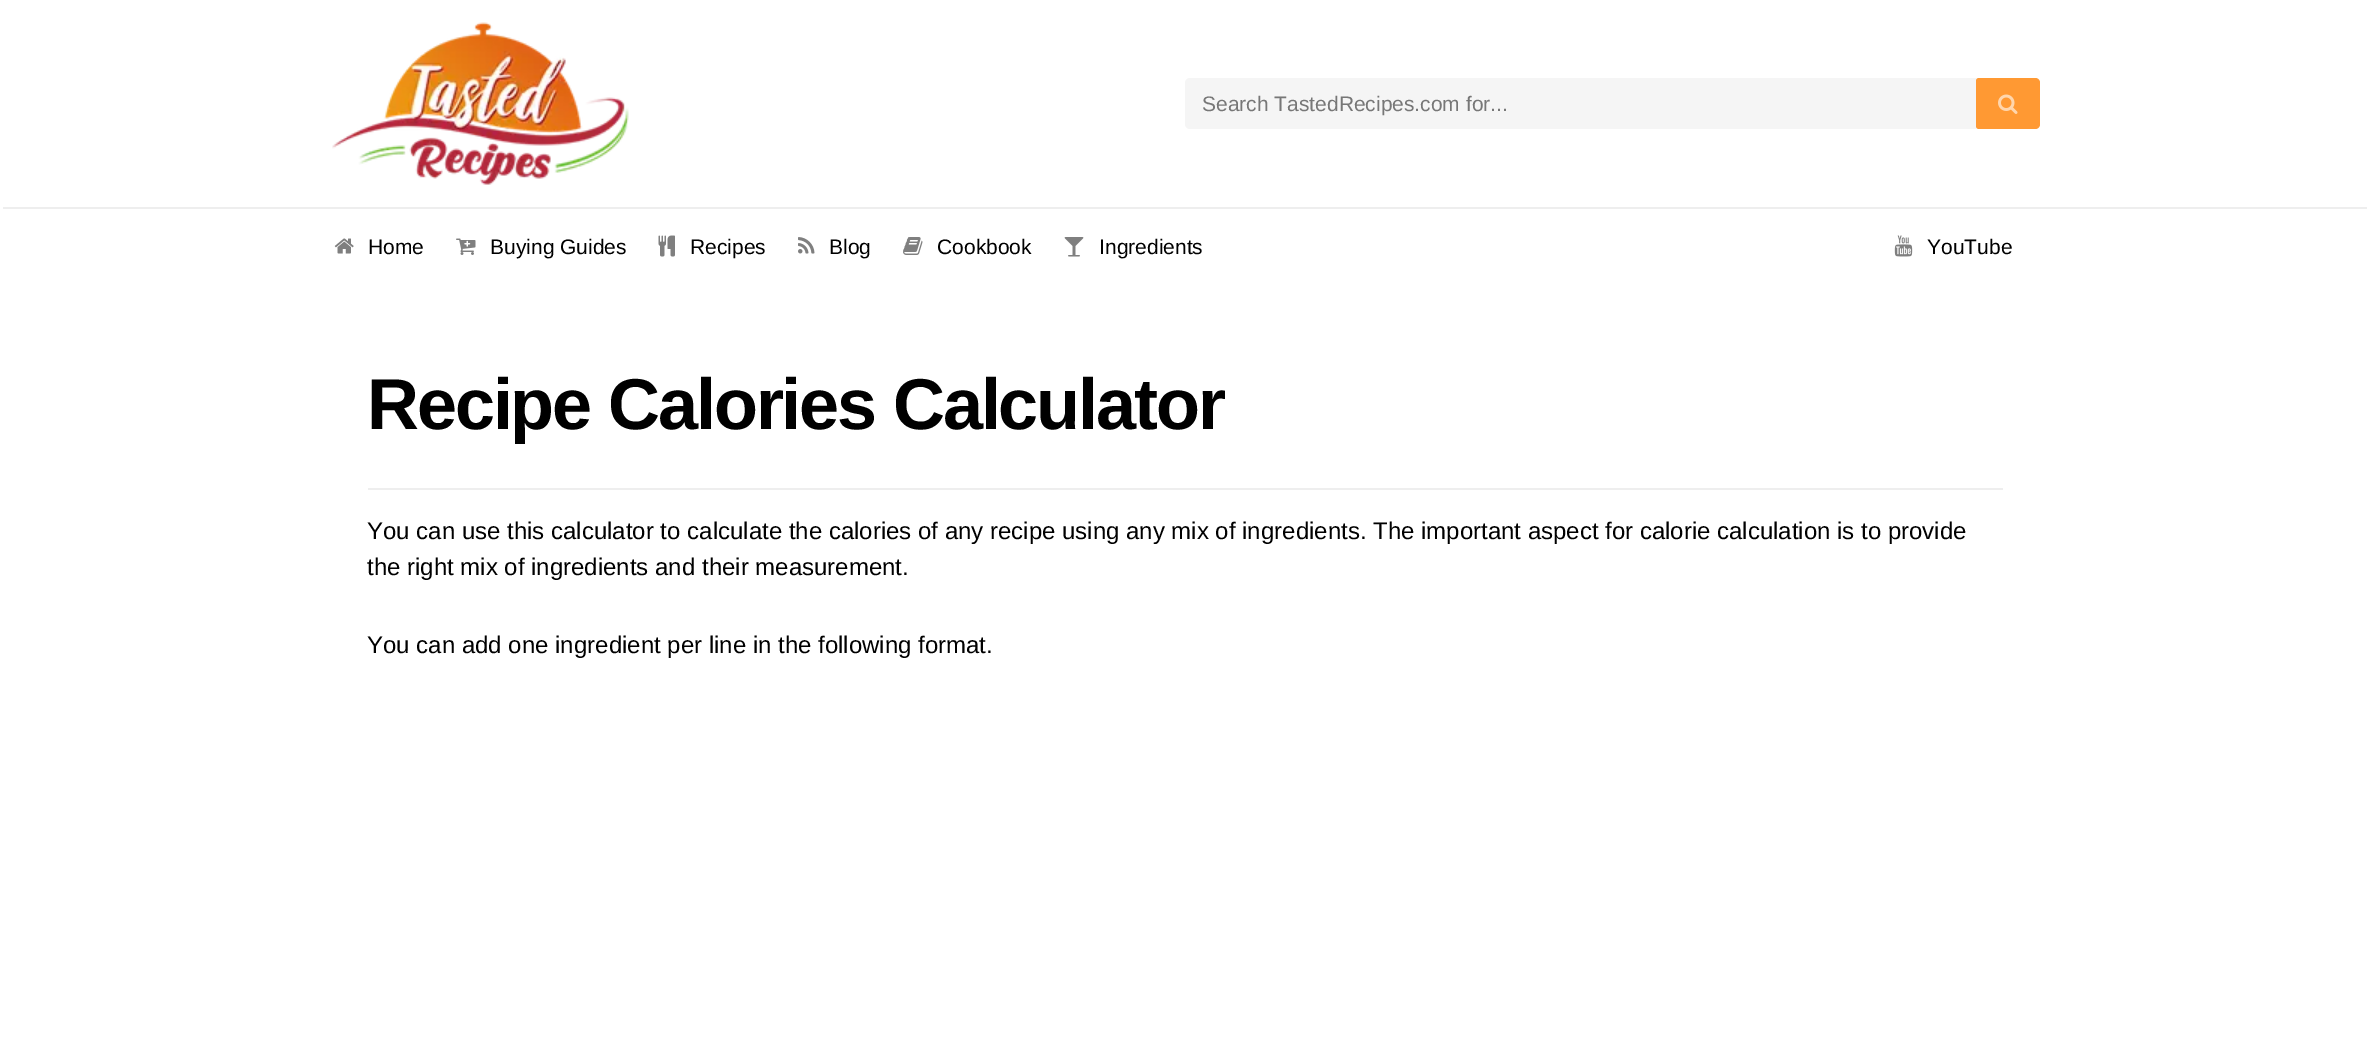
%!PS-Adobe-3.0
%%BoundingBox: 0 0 2368 1053
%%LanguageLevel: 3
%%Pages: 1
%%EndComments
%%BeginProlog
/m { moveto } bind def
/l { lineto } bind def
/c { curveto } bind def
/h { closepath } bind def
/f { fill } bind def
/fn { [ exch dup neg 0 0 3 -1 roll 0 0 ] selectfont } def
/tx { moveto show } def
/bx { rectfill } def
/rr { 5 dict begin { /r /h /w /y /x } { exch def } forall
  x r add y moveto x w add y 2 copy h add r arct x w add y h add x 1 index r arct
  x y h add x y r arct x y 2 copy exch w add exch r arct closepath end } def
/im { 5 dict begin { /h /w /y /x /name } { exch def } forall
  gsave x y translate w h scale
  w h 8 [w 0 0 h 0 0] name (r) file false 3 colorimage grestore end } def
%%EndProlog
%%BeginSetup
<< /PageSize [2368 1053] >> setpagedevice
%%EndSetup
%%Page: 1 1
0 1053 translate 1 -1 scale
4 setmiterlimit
1 setgray
0 0 2368 1053 bx
(image0.raw) 332 22 297 163 im
0.961 setgray
1185 78 855 51 5 rr f
/LiberationSans-Regular 21 fn
0.467 setgray
(Search TastedRecipes.com for...) 1202 111 tx
1 0.6 0.2 setrgbcolor
1979 78 m 2035 78 l 2038 78 2040 80 2040 83 c 2040 124 l 2040 127 2038 129 2035 129 c 1979 129 l 1977.5 129 1976 127.5 1976 126 c 1976 81 l 1976 79.5 1977.5 78 1979 78 c h f
(image1.raw) 1998 94 20 20 im
0.933 setgray
3 207 2364 2 bx
(image2.raw) 334 238 20 16 im
0 setgray
(Home) 368 254 tx
(image3.raw) 456 238 20 17 im
(Buying Guides) 490 254 tx
(image4.raw) 658 235 17 22 im
(Recipes) 690 254 tx
(image5.raw) 798 237 17 17 im
(Blog) 829 254 tx
(image6.raw) 903 237 20 18 im
(Cookbook) 937 254 tx
(image7.raw) 1064 237 20 20 im
(Ingredients) 1099 254 tx
(image8.raw) 1894 235 19 22 im
(YouTube) 1927 254 tx
/LiberationSans-Bold 72 fn
367 429 m -2.15 0 (Recipe Calories Calculator) ashow
0.933 setgray
368 488 1635 2 bx
/LiberationSans-Regular 24 fn
0 setgray
(You can use this calculator to calculate the calories of any recipe using any mix of ingredients. The important aspect for calorie calculation is to provide) 367 539 tx
(the right mix of ingredients and their measurement.) 367 575 tx
(You can add one ingredient per line in the following format.) 367 653 tx
showpage
%%EOF
